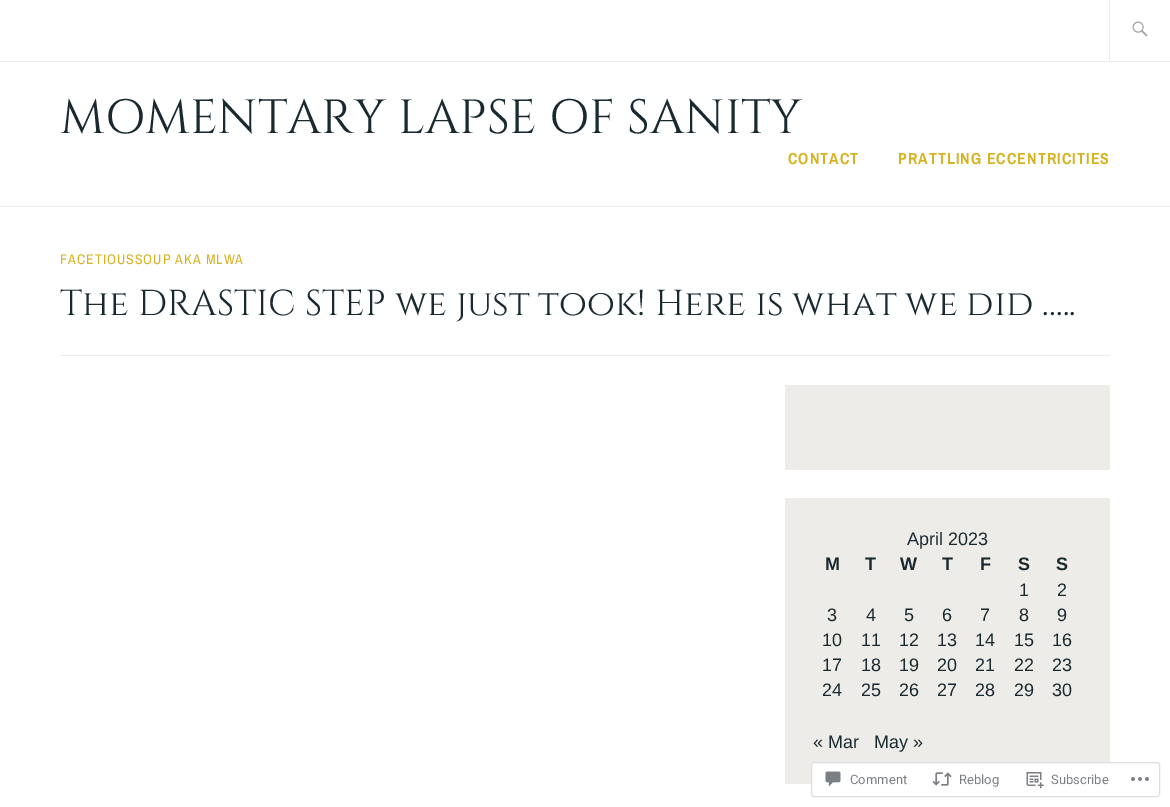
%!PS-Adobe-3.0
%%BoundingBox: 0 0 1170 807
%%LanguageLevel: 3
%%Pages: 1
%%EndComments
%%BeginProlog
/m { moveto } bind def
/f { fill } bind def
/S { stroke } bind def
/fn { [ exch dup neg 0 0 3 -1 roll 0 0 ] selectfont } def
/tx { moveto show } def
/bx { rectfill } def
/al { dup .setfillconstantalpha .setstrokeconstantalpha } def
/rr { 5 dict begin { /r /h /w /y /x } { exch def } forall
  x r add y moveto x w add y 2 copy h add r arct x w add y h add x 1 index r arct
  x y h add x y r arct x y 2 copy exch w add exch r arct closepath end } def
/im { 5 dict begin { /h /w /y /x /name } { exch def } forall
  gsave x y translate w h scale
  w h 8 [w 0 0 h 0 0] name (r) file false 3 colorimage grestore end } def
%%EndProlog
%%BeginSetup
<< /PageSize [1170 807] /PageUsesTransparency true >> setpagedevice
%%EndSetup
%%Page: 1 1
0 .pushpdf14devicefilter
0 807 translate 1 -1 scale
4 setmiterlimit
1 setgray
0 0 1170 807 bx
0.933 0.925 0.91 setrgbcolor
0 206 1170 1 bx
0 61 1170 1 bx
1109 0 1 61 bx
(image0.raw) 1132 21 16 16 im
/Cinzel-Regular 48 fn
0.098 0.161 0.188 setrgbcolor
(MOMENTARY LAPSE OF SANITY) 60 133 tx
/ArchivoNarrow-Bold 16 fn
0.843 0.698 0.129 setrgbcolor
788 164 m 1 0 (CONTACT) ashow
898 164 m 1 0 (PRATTLING ECCENTRICITIES) ashow
/ArchivoNarrow-Regular 14 fn
60 264 m 1 0 (FACETIOUSSOUP AKA MLWA) ashow
0.933 0.925 0.91 setrgbcolor
60 355 1050 1 bx
/Cinzel-Regular 36 fn
0.098 0.161 0.188 setrgbcolor
(The DRASTIC STEP we just took! Here is what we did …..) 60 315 tx
0.933 0.925 0.91 setrgbcolor
785 385 325 85 bx
785 498 325 286 bx
/LiberationSans-Regular 18 fn
0.098 0.161 0.188 setrgbcolor
(April 2023) 907 545 tx
/LiberationSans-Bold 18 fn
(M) 825 570 tx
(T) 865 570 tx
(W) 900 570 tx
(T) 942 570 tx
(F) 980 570 tx
(S) 1018 570 tx
(S) 1056 570 tx
/LiberationSans-Regular 18 fn
(1) 1019 596 tx
(2) 1057 596 tx
(3) 827 621 tx
(4) 866 621 tx
(5) 904 621 tx
(6) 942 621 tx
(7) 980 621 tx
(8) 1019 621 tx
(9) 1057 621 tx
(10) 822 646 tx
(11) 861 646 tx
(12) 899 646 tx
(13) 937 646 tx
(14) 975 646 tx
(15) 1014 646 tx
(16) 1052 646 tx
(17) 822 671 tx
(18) 861 671 tx
(19) 899 671 tx
(20) 937 671 tx
(21) 975 671 tx
(22) 1014 671 tx
(23) 1052 671 tx
(24) 822 696 tx
(25) 861 696 tx
(26) 899 696 tx
(27) 937 696 tx
(28) 975 696 tx
(29) 1014 696 tx
(30) 1052 696 tx
(« Mar) 813 748 tx
(May ») 874 748 tx
0.98 al
1 setgray
811 762 349 35 3 rr f
0.863 0.863 0.871 setrgbcolor
811.5 762.5 348 34 2.5 rr S
1 al
(image1.raw) 825 771 16 16 im
/Roboto-Regular 13 fn
0.482 0.498 0.518 setrgbcolor
(Comment) 850 784 tx
(image2.raw) 932 772 20 14 im
(Reblog) 959 784 tx
(image3.raw) 1026 772 18 17 im
(Subscribe) 1051 784 tx
(image4.raw) 1131 777 18 4 im
.poppdf14devicefilter showpage
%%EOF
